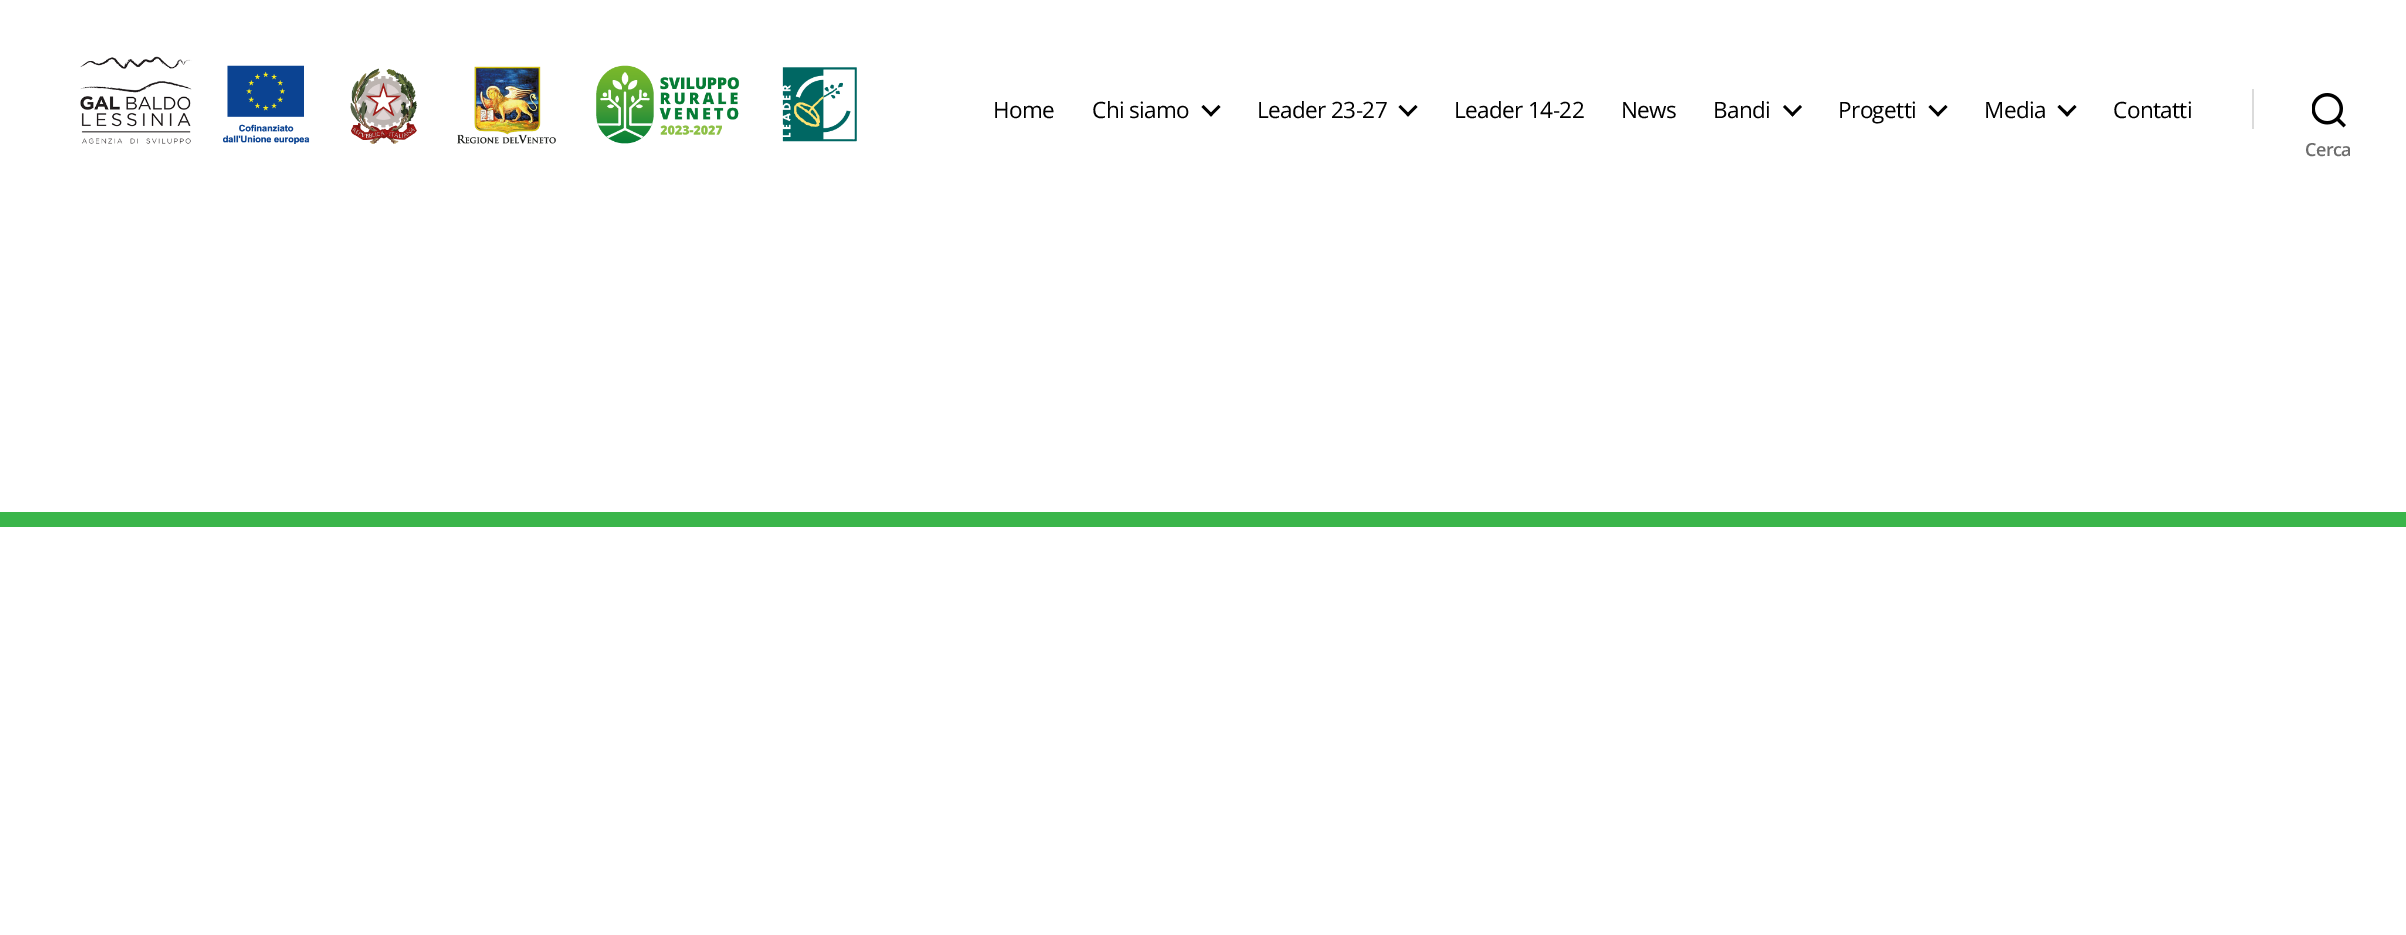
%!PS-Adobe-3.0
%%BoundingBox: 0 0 2406 935
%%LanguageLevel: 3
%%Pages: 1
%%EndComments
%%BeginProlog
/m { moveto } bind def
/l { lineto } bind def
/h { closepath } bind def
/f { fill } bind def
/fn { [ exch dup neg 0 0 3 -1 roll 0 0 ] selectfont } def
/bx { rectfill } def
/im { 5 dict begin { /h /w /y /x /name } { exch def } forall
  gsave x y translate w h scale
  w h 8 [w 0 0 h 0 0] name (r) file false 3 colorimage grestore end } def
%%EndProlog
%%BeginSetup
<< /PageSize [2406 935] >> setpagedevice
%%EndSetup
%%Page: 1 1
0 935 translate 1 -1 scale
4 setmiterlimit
1 setgray
0 0 2406 935 bx
(image0.raw) 80 56 777 88 im
/OpenSans-Regular 22.5 fn
0 setgray
993 118 m -0.6 0 (Home) ashow
1092 118 m -0.6 0 (Chi siamo) ashow
1201.5 107 m 1203.5 105 l 1213 114.5 l 1211 116.5 l h f
1209 114.5 m 1218.5 105 l 1220.5 107 l 1211 116.5 l h f
1257 118 m -0.6 0 (Leader 23-27) ashow
1398.5 107 m 1400.5 105 l 1410 114.5 l 1408 116.5 l h f
1406 114.5 m 1415.5 105 l 1417.5 107 l 1408 116.5 l h f
1454 118 m -0.6 0 (Leader 14-22) ashow
1621 118 m -0.6 0 (News) ashow
1713 118 m -0.6 0 (Bandi) ashow
1783 107 m 1785 105 l 1794.5 114.5 l 1792.5 116.5 l h f
1790.5 114.5 m 1800 105 l 1802 107 l 1792.5 116.5 l h f
1838 118 m -0.6 0 (Progetti) ashow
1928.5 107 m 1930.5 105 l 1940 114.5 l 1938 116.5 l h f
1936 114.5 m 1945.5 105 l 1947.5 107 l 1938 116.5 l h f
1984 118 m -0.6 0 (Media) ashow
2057.5 107 m 2059.5 105 l 2069.5 114.5 l 2067 116.5 l h f
2065 114.5 m 2074.5 105 l 2076.5 107 l 2067 116.5 l h f
2113 118 m -0.6 0 (Contatti) ashow
0.859 setgray
2252 89 2 40 bx
(image1.raw) 2312 93 34 35 im
/OpenSans-SemiBold 18 fn
0.427 setgray
2305 156 m -0.5 0 (Cerca) ashow
0.227 0.71 0.29 setrgbcolor
0 512 2406 15 bx
showpage
%%EOF
